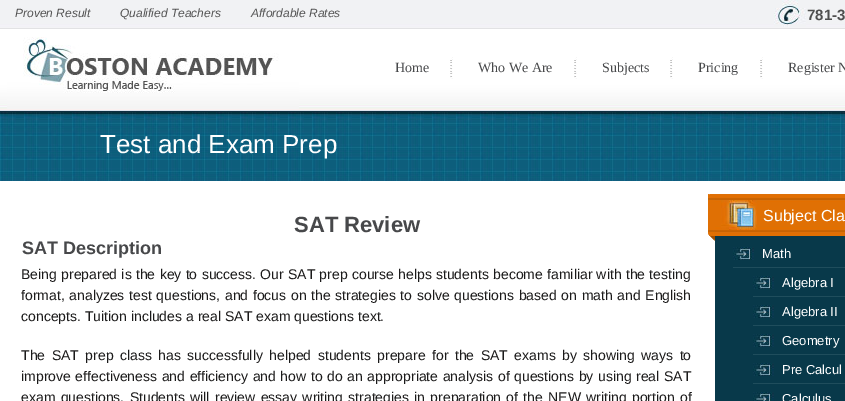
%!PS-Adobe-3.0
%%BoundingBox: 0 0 845 401
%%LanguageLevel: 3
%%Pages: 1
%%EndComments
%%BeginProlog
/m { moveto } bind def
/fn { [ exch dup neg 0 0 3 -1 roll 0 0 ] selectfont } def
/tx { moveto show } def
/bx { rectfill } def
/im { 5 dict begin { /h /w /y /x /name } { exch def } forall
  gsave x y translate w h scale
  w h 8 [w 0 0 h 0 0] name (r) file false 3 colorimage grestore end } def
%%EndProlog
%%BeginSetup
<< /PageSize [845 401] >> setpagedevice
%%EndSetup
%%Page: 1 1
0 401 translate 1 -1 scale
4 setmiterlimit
1 setgray
0 0 845 401 bx
(image0.raw) 0 0 845 181 im
/LiberationSans-Italic 12 fn
0.329 setgray
(Proven Result) 15 17 tx
(Qualified Teachers) 120 17 tx
(Affordable Rates) 251 17 tx
(image1.raw) 774 0 32 27 im
/LiberationSans-Bold 15 fn
0.306 setgray
(781-3) 807 20 tx
(image2.raw) 7 37 292 72 im
(image3.raw) 450 57 3 22 im
/LiberationSerif-Regular 14 fn
0.278 0.282 0.29 setrgbcolor
(Home) 395 72 tx
(image3.raw) 574 57 3 22 im
(Who We Are) 478 72 tx
(image3.raw) 670 57 3 22 im
(Subjects) 602 72 tx
(image3.raw) 760 57 3 22 im
(Pricing) 698 72 tx
(Register N) 788 72 tx
/LiberationSans-Regular 26 fn
1 setgray
(Test and Exam Prep) 100 153 tx
/LiberationSans-Bold 22 fn
0.278 0.282 0.29 setrgbcolor
(SAT Review) 294 232 tx
/LiberationSans-Bold 18 fn
(SAT Description) 22 254 tx
/LiberationSans-Regular 14 fn
0.106 0.102 0.102 setrgbcolor
21 279 m 0.4 0 32 (Being prepared is the key to success. Our SAT prep course helps students become familiar with the testing) widthshow
21 300 m 0.75 0 32 (format, analyzes test questions, and focus on the strategies to solve questions based on math and English) widthshow
(concepts. Tuition includes a real SAT exam questions text.) 21 321 tx
21 360 m 2.6 0 32 (The SAT prep class has successfully helped students prepare for the SAT exams by showing ways to) widthshow
21 381 m 0.7 0 32 (improve effectiveness and efficiency and how to do an appropriate analysis of questions by using real SAT) widthshow
21 402 m 1.4 0 32 (exam questions. Students will review essay writing strategies in preparation of the NEW writing portion of) widthshow
0.031 0.224 0.29 setrgbcolor
715 236 130 165 bx
(image4.raw) 708 194 7 47 im
(image5.raw) 715 194 130 42 im
(image6.raw) 721 200 36 30 im
/LiberationSans-Regular 16 fn
1 setgray
(Subject Cla) 763 221 tx
(image7.raw) 733 247 21 13 im
0.122 0.302 0.361 setrgbcolor
733 267 112 1 bx
/LiberationSans-Regular 13 fn
1 setgray
(Math) 762 258 tx
(image7.raw) 753 276 21 13 im
0.122 0.302 0.361 setrgbcolor
753 296 92 1 bx
1 setgray
(Algebra I) 782 287 tx
(image7.raw) 753 305 21 13 im
0.122 0.302 0.361 setrgbcolor
753 325 92 1 bx
1 setgray
(Algebra II) 782 316 tx
(image7.raw) 753 334 21 13 im
0.122 0.302 0.361 setrgbcolor
753 354 92 1 bx
1 setgray
(Geometry) 782 345 tx
(image7.raw) 753 363 21 13 im
0.122 0.302 0.361 setrgbcolor
753 383 92 1 bx
1 setgray
(Pre Calcul) 782 374 tx
(image8.raw) 753 392 21 9 im
(Calculus) 782 403 tx
showpage
%%EOF
